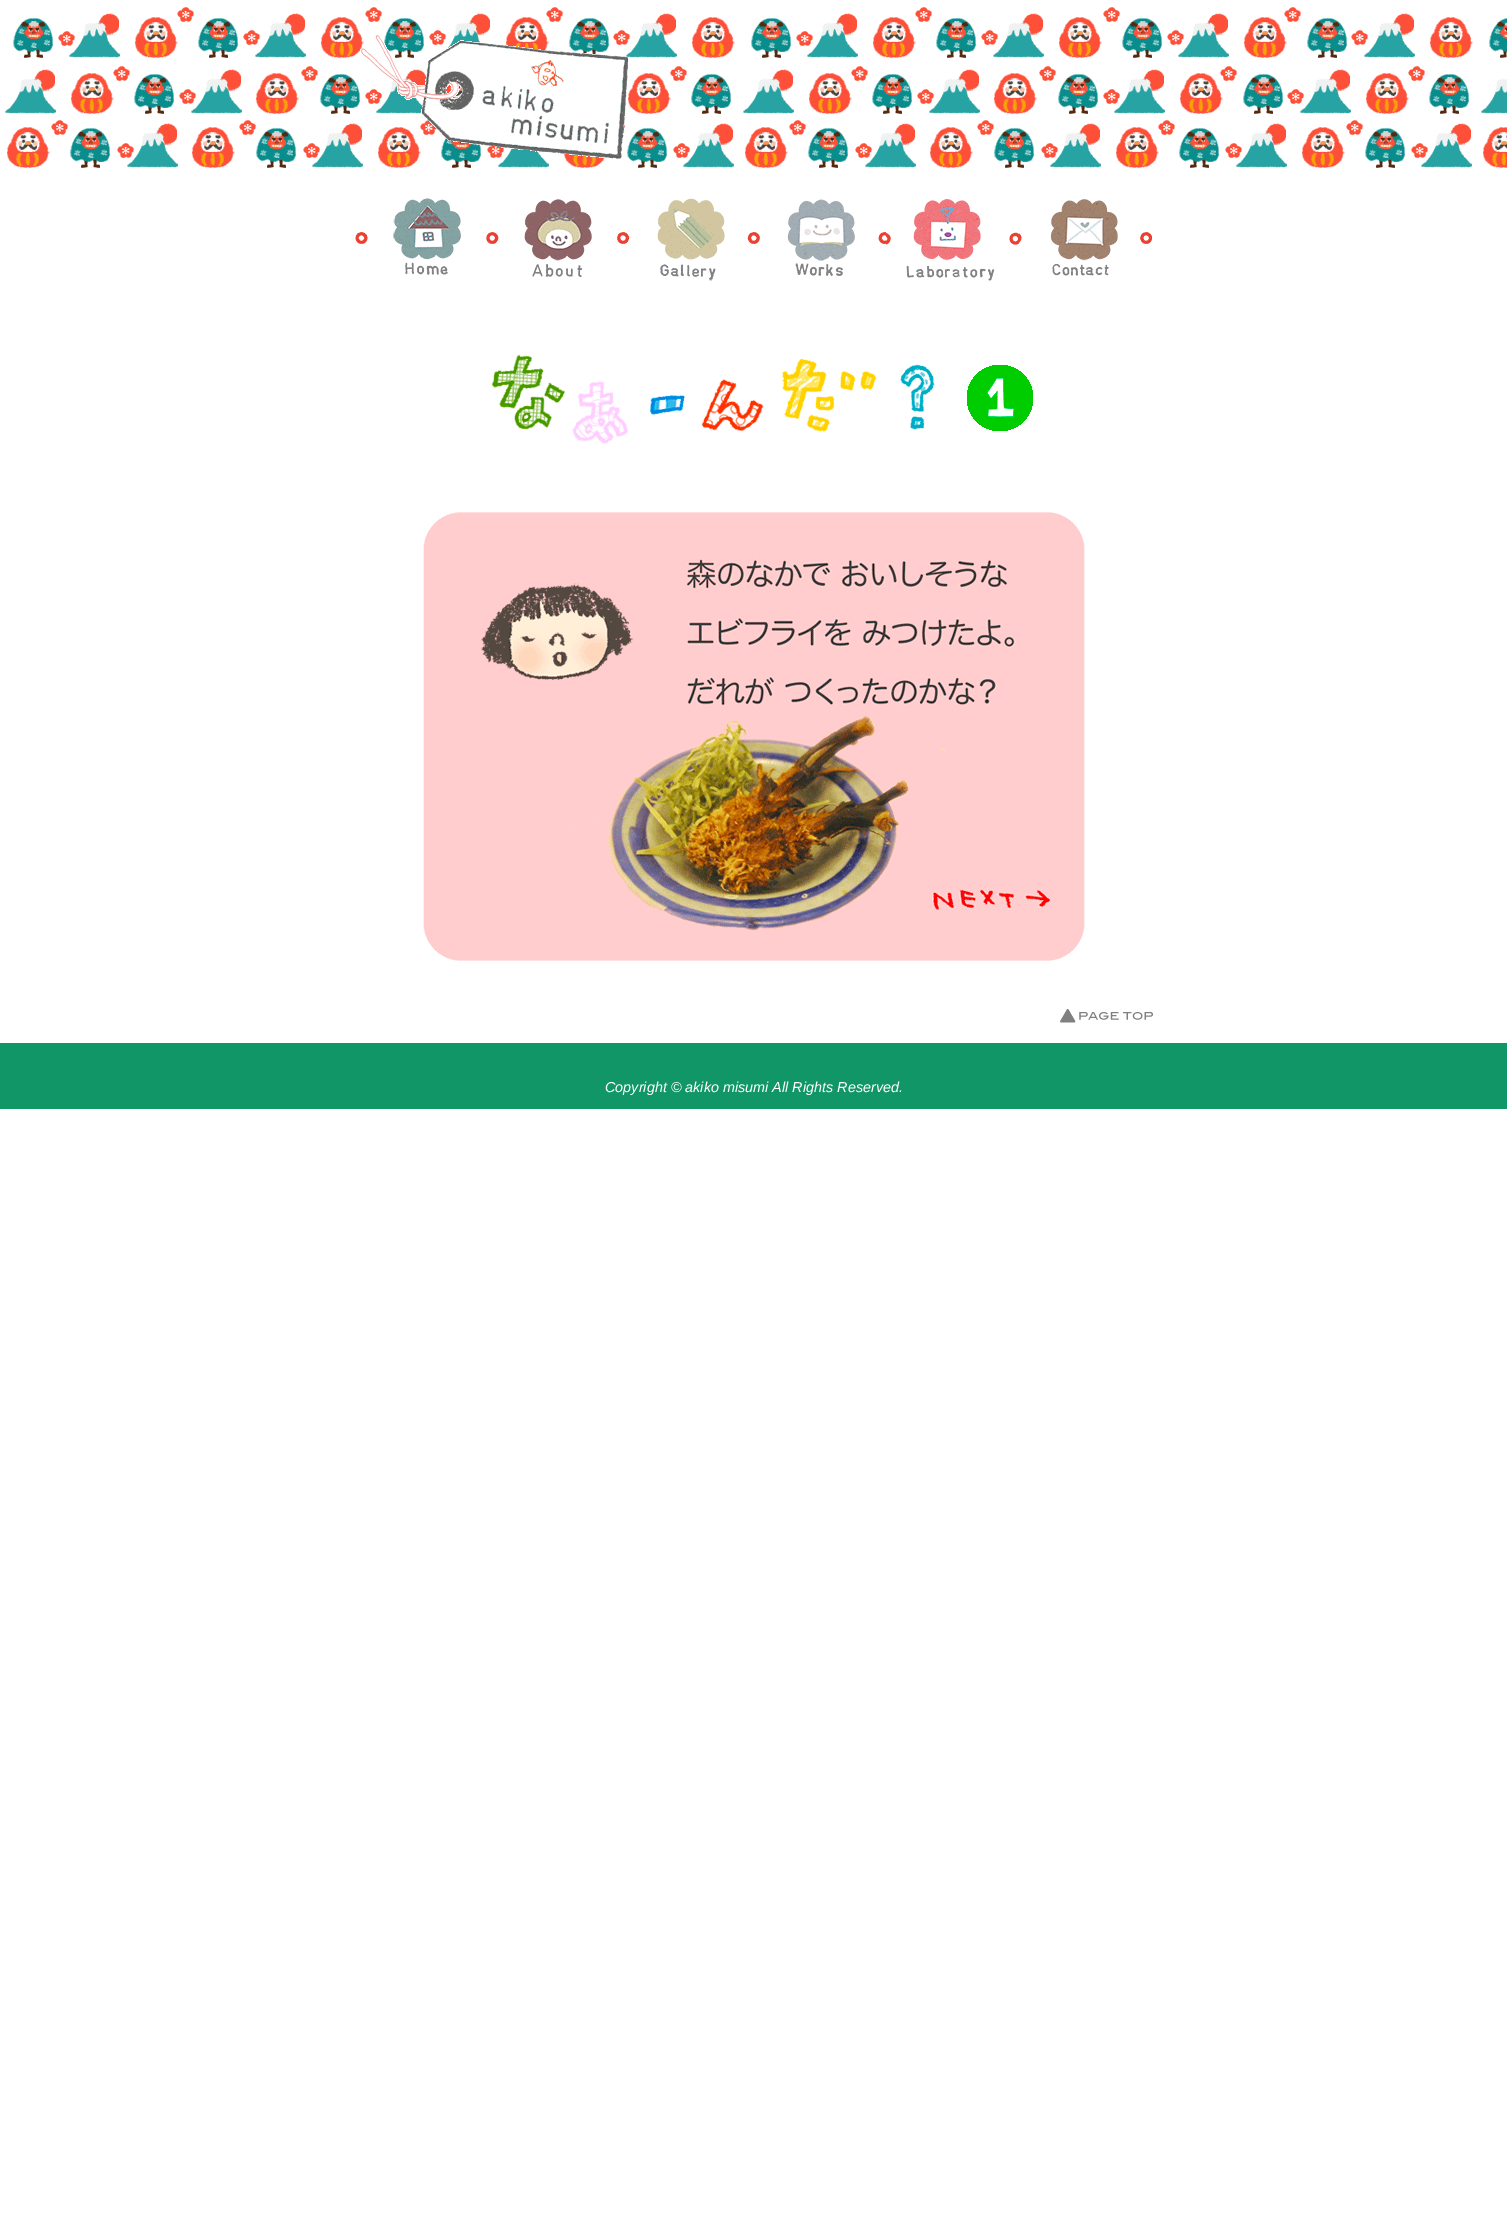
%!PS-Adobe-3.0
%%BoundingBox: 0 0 1507 2234
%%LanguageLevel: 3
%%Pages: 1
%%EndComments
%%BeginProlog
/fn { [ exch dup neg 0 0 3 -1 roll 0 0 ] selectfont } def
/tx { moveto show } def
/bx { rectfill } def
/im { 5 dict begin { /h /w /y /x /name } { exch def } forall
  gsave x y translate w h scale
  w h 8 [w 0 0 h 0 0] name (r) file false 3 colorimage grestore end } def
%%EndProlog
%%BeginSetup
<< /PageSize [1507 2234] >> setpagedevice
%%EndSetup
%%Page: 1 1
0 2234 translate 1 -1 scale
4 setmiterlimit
1 setgray
0 0 1507 2234 bx
(image0.raw) 5 7 1502 161 im
(image1.raw) 360 35 269 124 im
(image2.raw) 355 198 132 77 im
(image3.raw) 487 199 133 78 im
(image4.raw) 620 198 133 83 im
(image5.raw) 753 199 133 77 im
(image6.raw) 886 199 133 82 im
(image7.raw) 1019 199 133 77 im
(image8.raw) 491 354 542 90 im
(image9.raw) 423 512 662 449 im
(image10.raw) 1060 1009 93 14 im
0.063 0.588 0.404 setrgbcolor
0 1043 1507 66 bx
/LiberationSans-Italic 14.4 fn
1 setgray
(Copyright © akiko misumi All Rights Reserved.) 605 1092 tx
showpage
%%EOF
